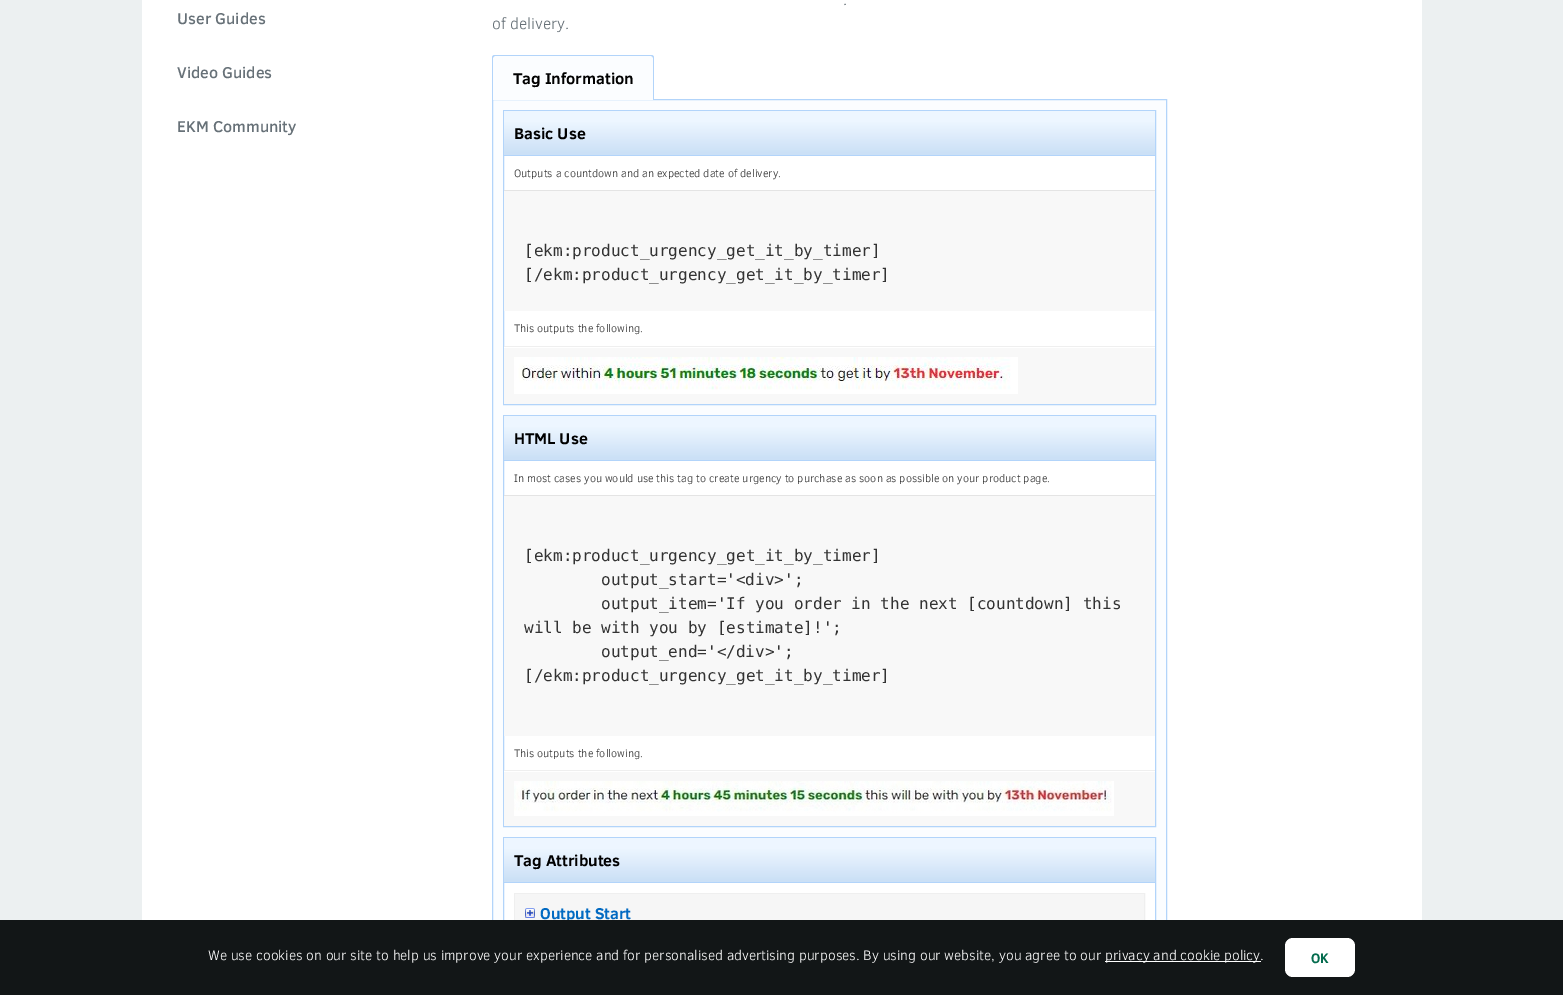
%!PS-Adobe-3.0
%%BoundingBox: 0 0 1563 995
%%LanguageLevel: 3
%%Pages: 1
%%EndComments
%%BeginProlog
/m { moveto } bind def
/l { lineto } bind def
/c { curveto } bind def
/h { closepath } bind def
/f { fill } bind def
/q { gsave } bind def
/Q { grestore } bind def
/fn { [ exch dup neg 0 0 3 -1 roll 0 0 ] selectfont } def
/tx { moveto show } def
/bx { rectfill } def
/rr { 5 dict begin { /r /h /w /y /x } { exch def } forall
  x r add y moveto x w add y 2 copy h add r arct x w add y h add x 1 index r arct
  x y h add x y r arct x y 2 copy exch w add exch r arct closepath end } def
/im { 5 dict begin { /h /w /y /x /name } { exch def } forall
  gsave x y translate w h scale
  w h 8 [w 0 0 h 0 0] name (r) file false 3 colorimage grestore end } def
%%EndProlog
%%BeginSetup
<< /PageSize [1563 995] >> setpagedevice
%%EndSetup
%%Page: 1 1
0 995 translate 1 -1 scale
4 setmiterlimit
0.925 0.941 0.945 setrgbcolor
0 0 1563 995 bx
1 setgray
142 0 1280 920 bx
/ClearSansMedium-Medium 16 fn
0.404 0.443 0.471 setrgbcolor
(User Guides) 177 24 tx
(Video Guides) 177 78 tx
(EKM Community) 177 132 tx
/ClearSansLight-Light 16 fn
(.) 843 5 tx
(of delivery.) 492 29 tx
0.984 0.992 1 setrgbcolor
493 100 673 820 bx
0.698 0.831 0.98 setrgbcolor
492.5 99.5 674 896 rectstroke
0.984 0.992 1 setrgbcolor
495 55 m 651 55 l 652.5 55 654 56.5 654 58 c 654 100 l 492 100 l 492 58 l 492 56.5 493.5 55 495 55 c h f
0.698 0.831 0.98 setrgbcolor
495 55 m 651 55 l 653 55 654 56 654 58 c 654 100 l 492 100 l 492 58 l 492 56 493 55 495 55 c h 495 56 m 651 56 l 652 56 653 57 653 58 c 653 100 l 493 100 l 493 58 l 493 57 494 56 495 56 c h eofill
/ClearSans-Bold 16 fn
0 setgray
(Tag Information) 513 84 tx
1 setgray
504 156 651 190 bx
0.698 0.831 0.98 setrgbcolor
503.5 110.5 652 294 rectstroke
q 504 111 m 1155 111 l 1155 155 l 504 155 l h clip newpath
<< /ShadingType 2 /ColorSpace /DeviceRGB /Coords [830 155 830 111] /Extend [true true] /Function << /FunctionType 3 /Domain [0 1] /Functions [<< /FunctionType 2 /Domain [0 1] /C0 [0.796 0.878 0.965] /C1 [0.796 0.878 0.965] /N 1 >> << /FunctionType 2 /Domain [0 1] /C0 [0.796 0.878 0.965] /C1 [0.929 0.965 1] /N 1 >> << /FunctionType 2 /Domain [0 1] /C0 [0.929 0.965 1] /C1 [0.929 0.965 1] /N 1 >>] /Bounds [0.04 0.76] /Encode [0 1 0 1 0 1] >> >> shfill Q
504 155 651 1 bx
0 setgray
(Basic Use) 514 139 tx
/ClearSansLight-Light 11 fn
0.2 setgray
(Outputs a countdown and an expected date of delivery.) 514 177 tx
0.973 setgray
504 191 651 120 bx
0.894 setgray
504 190 651 1 bx
/DejaVuSansMono-Regular 16 fn
0.2 setgray
([ekm:product_urgency_get_it_by_timer]) 524 256 tx
([/ekm:product_urgency_get_it_by_timer]) 524 280 tx
/ClearSansLight-Light 11 fn
(This outputs the following.) 514 332 tx
0.973 setgray
504 348 651 56 bx
1 setgray
504 347 651 1 bx
0.937 setgray
504 346 651 1 bx
(image0.raw) 514 357 504 37 im
1 setgray
504 461 651 309 bx
0.698 0.831 0.98 setrgbcolor
503.5 415.5 652 411 rectstroke
q 504 416 m 1155 416 l 1155 460 l 504 460 l h clip newpath
<< /ShadingType 2 /ColorSpace /DeviceRGB /Coords [830 460 830 416] /Extend [true true] /Function << /FunctionType 3 /Domain [0 1] /Functions [<< /FunctionType 2 /Domain [0 1] /C0 [0.796 0.878 0.965] /C1 [0.796 0.878 0.965] /N 1 >> << /FunctionType 2 /Domain [0 1] /C0 [0.796 0.878 0.965] /C1 [0.929 0.965 1] /N 1 >> << /FunctionType 2 /Domain [0 1] /C0 [0.929 0.965 1] /C1 [0.929 0.965 1] /N 1 >>] /Bounds [0.04 0.76] /Encode [0 1 0 1 0 1] >> >> shfill Q
504 460 651 1 bx
/ClearSans-Bold 16 fn
0 setgray
(HTML Use) 514 444 tx
/ClearSansLight-Light 11 fn
0.2 setgray
(In most cases you would use this tag to create urgency to purchase as soon as possible on your product page.) 514 482 tx
0.973 setgray
504 496 651 240 bx
0.894 setgray
504 495 651 1 bx
/DejaVuSansMono-Regular 16 fn
0.2 setgray
([ekm:product_urgency_get_it_by_timer]) 524 561 tx
(output_start='<div>';) 601 585 tx
(output_item='If you order in the next [countdown] this) 601 609 tx
(will be with you by [estimate]!';) 524 633 tx
(output_end='</div>';) 601 657 tx
([/ekm:product_urgency_get_it_by_timer]) 524 681 tx
/ClearSansLight-Light 11 fn
(This outputs the following.) 514 757 tx
0.973 setgray
504 772 651 54 bx
1 setgray
504 771 651 1 bx
0.937 setgray
504 770 651 1 bx
(image1.raw) 514 781 600 35 im
1 setgray
504 883 651 37 bx
0.698 0.831 0.98 setrgbcolor
503.5 837.5 652 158 rectstroke
q 504 838 m 1155 838 l 1155 882 l 504 882 l h clip newpath
<< /ShadingType 2 /ColorSpace /DeviceRGB /Coords [830 882 830 838] /Extend [true true] /Function << /FunctionType 3 /Domain [0 1] /Functions [<< /FunctionType 2 /Domain [0 1] /C0 [0.796 0.878 0.965] /C1 [0.796 0.878 0.965] /N 1 >> << /FunctionType 2 /Domain [0 1] /C0 [0.796 0.878 0.965] /C1 [0.929 0.965 1] /N 1 >> << /FunctionType 2 /Domain [0 1] /C0 [0.929 0.965 1] /C1 [0.929 0.965 1] /N 1 >>] /Bounds [0.04 0.76] /Encode [0 1 0 1 0 1] >> >> shfill Q
504 882 651 1 bx
/ClearSans-Bold 16 fn
0 setgray
(Tag Attributes) 514 866 tx
0.937 setgray
514.5 893.5 630 39 rectstroke
0.965 setgray
515 894 629 26 bx
(image2.raw) 525 908 10 10 im
0.008 0.416 0.761 setrgbcolor
(Output Start) 540 919 tx
0.071 0.086 0.09 setrgbcolor
0 920 1563 75 bx
/ClearSansLight-Light 14 fn
1 setgray
(We use cookies on our site to help us improve your experience and for personalised advertising purposes. By using our website, you agree to our) 208 960 tx
1105 961 156 1 bx
(privacy and cookie policy.) 1105 960 tx
1285 938 70 39 8 rr f
/ClearSans-Bold 14 fn
0.016 0.424 0.306 setrgbcolor
(OK) 1311 963 tx
showpage
%%EOF
